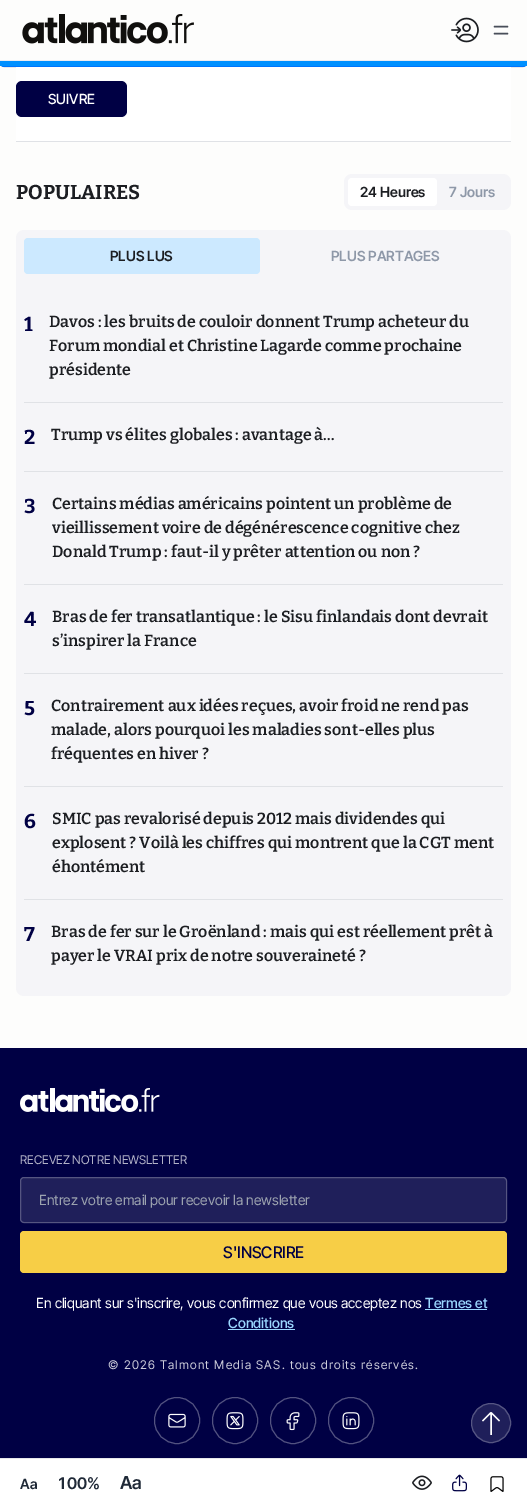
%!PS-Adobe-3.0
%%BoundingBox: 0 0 527 1507
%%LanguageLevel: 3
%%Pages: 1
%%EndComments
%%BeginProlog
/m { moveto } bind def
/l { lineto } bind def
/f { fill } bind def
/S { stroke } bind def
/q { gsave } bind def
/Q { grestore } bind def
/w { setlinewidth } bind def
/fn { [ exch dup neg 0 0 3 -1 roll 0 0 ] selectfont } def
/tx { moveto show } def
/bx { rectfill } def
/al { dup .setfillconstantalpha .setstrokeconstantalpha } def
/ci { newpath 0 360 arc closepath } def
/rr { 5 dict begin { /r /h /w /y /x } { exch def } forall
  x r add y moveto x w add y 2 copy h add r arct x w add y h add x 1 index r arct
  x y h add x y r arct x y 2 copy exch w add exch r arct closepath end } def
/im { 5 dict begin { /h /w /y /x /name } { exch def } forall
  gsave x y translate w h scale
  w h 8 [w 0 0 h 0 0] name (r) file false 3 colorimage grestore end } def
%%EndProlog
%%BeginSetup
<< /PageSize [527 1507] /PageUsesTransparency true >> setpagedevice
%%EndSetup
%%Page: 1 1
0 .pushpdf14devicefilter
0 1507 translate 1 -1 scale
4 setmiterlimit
0.992 0.992 0.988 setrgbcolor
0 0 527 1507 bx
0.698 setgray
0.5 59.5 526 7 3.5 rr S
0 0.459 1 setrgbcolor
0 59 527 8 4 rr f
0.992 0.992 0.988 setrgbcolor
1 59 525 1 bx
0.922 0.922 0.941 setrgbcolor
0 60 527 1 bx
(image0.raw) 22 14 172 30 im
(image1.raw) 451 17 28 26 im
0.286 0.31 0.353 setrgbcolor
1.5 w
1 setlinecap
1 setlinejoin
494.5 26.5 m 507.5 26.5 l 494.5 33.5 m 507.5 33.5 l S
0 0.565 1 setrgbcolor
0 61 527 5 bx
1 setgray
16 67 495 74 bx
0.878 0.886 0.902 setrgbcolor
16 141 495 1 bx
0 0 0.267 setrgbcolor
16 81 111 36 6 rr f
/InterTight-Medium 14 fn
1 setgray
(SUIVRE) 48 104 tx
/Bitter-Bold 20 fn
0.11 0.118 0.133 setrgbcolor
(POPULAIRES) 16 199 tx
0.961 0.961 0.973 setrgbcolor
344 174 167 36 8 rr f
1 setgray
348 178 89 28 4 rr f
/InterTight-SemiBold 14 fn
0.11 0.118 0.133 setrgbcolor
(24 Heures) 360 197 tx
0.557 0.596 0.659 setrgbcolor
(7 Jours) 449 197 tx
0.961 0.961 0.973 setrgbcolor
16 230 495 766 8 rr f
0.8 0.914 1 setrgbcolor
24 238 236 36 4 rr f
0.11 0.118 0.133 setrgbcolor
(PLUS LUS) 110 261 tx
0.557 0.596 0.659 setrgbcolor
(PLUS PARTAGES) 331 261 tx
0.878 0.886 0.902 setrgbcolor
24 402 479 1 bx
/Bitter-Bold 20 fn
0 0 0.267 setrgbcolor
(1) 24 331 tx
/Bitter-SemiBold 16 fn
0.11 0.118 0.133 setrgbcolor
(Davos : les bruits de couloir donnent Trump acheteur du) 49 327 tx
(Forum mondial et Christine Lagarde comme prochaine) 49 351 tx
(présidente) 49 375 tx
0.878 0.886 0.902 setrgbcolor
24 471 479 1 bx
/Bitter-Bold 20 fn
0 0 0.267 setrgbcolor
(2) 24 444 tx
/Bitter-SemiBold 16 fn
0.11 0.118 0.133 setrgbcolor
(Trump vs élites globales : avantage à…) 51 440 tx
0.878 0.886 0.902 setrgbcolor
24 584 479 1 bx
/Bitter-Bold 20 fn
0 0 0.267 setrgbcolor
(3) 24 513 tx
/Bitter-SemiBold 16 fn
0.11 0.118 0.133 setrgbcolor
(Certains médias américains pointent un problème de) 52 509 tx
(vieillissement voire de dégénérescence cognitive chez) 52 533 tx
(Donald Trump : faut-il y prêter attention ou non ?) 52 557 tx
0.878 0.886 0.902 setrgbcolor
24 673 479 1 bx
/Bitter-Bold 20 fn
0 0 0.267 setrgbcolor
(4) 24 626 tx
/Bitter-SemiBold 16 fn
0.11 0.118 0.133 setrgbcolor
(Bras de fer transatlantique : le Sisu finlandais dont devrait) 52 622 tx
(s’inspirer la France) 52 646 tx
0.878 0.886 0.902 setrgbcolor
24 786 479 1 bx
/Bitter-Bold 20 fn
0 0 0.267 setrgbcolor
(5) 24 715 tx
/Bitter-SemiBold 16 fn
0.11 0.118 0.133 setrgbcolor
(Contrairement aux idées reçues, avoir froid ne rend pas) 51 711 tx
(malade, alors pourquoi les maladies sont-elles plus) 51 735 tx
(fréquentes en hiver ?) 51 759 tx
0.878 0.886 0.902 setrgbcolor
24 899 479 1 bx
/Bitter-Bold 20 fn
0 0 0.267 setrgbcolor
(6) 24 828 tx
/Bitter-SemiBold 16 fn
0.11 0.118 0.133 setrgbcolor
(SMIC pas revalorisé depuis 2012 mais dividendes qui) 52 824 tx
(explosent ? Voilà les chiffres qui montrent que la CGT ment) 52 848 tx
(éhontément) 52 872 tx
/Bitter-Bold 20 fn
0 0 0.267 setrgbcolor
(7) 24 941 tx
/Bitter-SemiBold 16 fn
0.11 0.118 0.133 setrgbcolor
(Bras de fer sur le Groënland : mais qui est réellement prêt à) 51 937 tx
(payer le VRAI prix de notre souveraineté ?) 51 961 tx
1 setgray
0 1459 527 48 bx
0.898 0.906 0.922 setrgbcolor
0 1458 527 1 bx
/InterTight-SemiBold 14 fn
0.122 0.161 0.216 setrgbcolor
(Aa) 20 1489 tx
/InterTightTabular-SemiBold 16 fn
(100%) 57 1489 tx
/InterTight-SemiBold 18 fn
(Aa) 120 1489 tx
(image2.raw) 412 1475 20 15 im
(image3.raw) 452 1474 15 18 im
(image4.raw) 490 1476 14 16 im
0 0 0.267 setrgbcolor
0 1048 527 410 bx
(image5.raw) 20 1088 140 24 im
/InterTight-Regular 12 fn
0.698 0.698 0.78 setrgbcolor
(RECEVEZ NOTRE NEWSLETTER) 20 1164 tx
0.122 0.122 0.353 setrgbcolor
20 1177 487 46 4 rr f
0.24 al
1 setgray
1 w
0 setlinecap
0 setlinejoin
20.5 1177.5 486 45 3.5 rr S
/InterTight-Regular 14 fn
1 al
0.612 0.639 0.686 setrgbcolor
(Entrez votre email pour recevoir la newsletter) 39 1205 tx
0.969 0.808 0.275 setrgbcolor
20 1231 487 42 4 rr f
/InterTight-Medium 16 fn
0 0 0.267 setrgbcolor
(S'INSCRIRE) 223 1258 tx
/InterTight-Regular 14 fn
1 setgray
(En cliquant sur s'inscrire, vous confirmez que vous acceptez nos) 36 1308 tx
/InterTight-Medium 14 fn
0.608 0.843 1 setrgbcolor
(Termes et) 425 1308 tx
425 1309 62 1 bx
(Conditions) 228 1328 tx
228 1329 67 1 bx
/InterTight-Regular 12 fn
0.8 0.8 0.855 setrgbcolor
108 1369 m 1.2 0 (© 2026 Talmont Media SAS. tous droits réservés.) ashow
0.322 0.322 0.502 setrgbcolor
154.5 1397.5 45 46 22.5 rr S
(image6.raw) 168 1413 18 15 im
212.5 1397.5 45 46 22.5 rr S
(image7.raw) 226 1412 18 18 im
270.5 1397.5 45 46 22.5 rr S
(image8.raw) 286 1412 14 19 im
328.5 1397.5 45 46 22.5 rr S
(image9.raw) 342 1412 18 18 im
0.122 0.122 0.353 setrgbcolor
491 1423 19.5 ci q f Q
0.333 0.333 0.51 setrgbcolor
S
1 setgray
1.4 w
491 1412.5 m 491 1435 l 491 1412.5 m 482.5 1421 l 491 1412.5 m 499.5 1421 l S
.poppdf14devicefilter showpage
%%EOF
